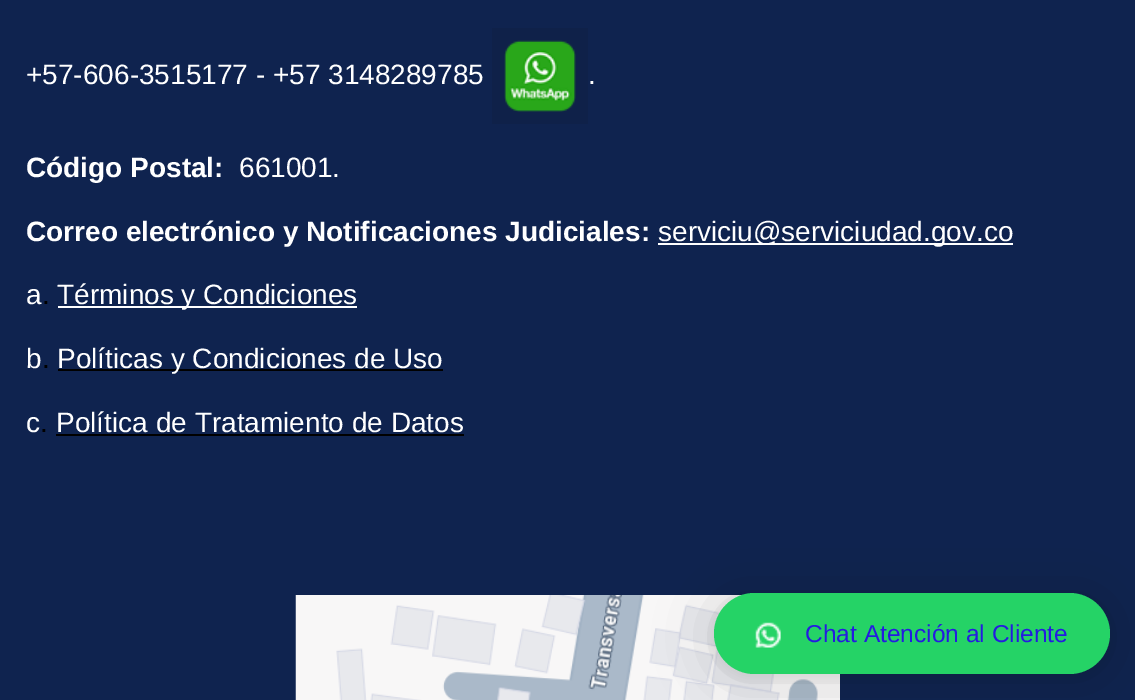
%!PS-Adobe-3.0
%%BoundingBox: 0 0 1135 700
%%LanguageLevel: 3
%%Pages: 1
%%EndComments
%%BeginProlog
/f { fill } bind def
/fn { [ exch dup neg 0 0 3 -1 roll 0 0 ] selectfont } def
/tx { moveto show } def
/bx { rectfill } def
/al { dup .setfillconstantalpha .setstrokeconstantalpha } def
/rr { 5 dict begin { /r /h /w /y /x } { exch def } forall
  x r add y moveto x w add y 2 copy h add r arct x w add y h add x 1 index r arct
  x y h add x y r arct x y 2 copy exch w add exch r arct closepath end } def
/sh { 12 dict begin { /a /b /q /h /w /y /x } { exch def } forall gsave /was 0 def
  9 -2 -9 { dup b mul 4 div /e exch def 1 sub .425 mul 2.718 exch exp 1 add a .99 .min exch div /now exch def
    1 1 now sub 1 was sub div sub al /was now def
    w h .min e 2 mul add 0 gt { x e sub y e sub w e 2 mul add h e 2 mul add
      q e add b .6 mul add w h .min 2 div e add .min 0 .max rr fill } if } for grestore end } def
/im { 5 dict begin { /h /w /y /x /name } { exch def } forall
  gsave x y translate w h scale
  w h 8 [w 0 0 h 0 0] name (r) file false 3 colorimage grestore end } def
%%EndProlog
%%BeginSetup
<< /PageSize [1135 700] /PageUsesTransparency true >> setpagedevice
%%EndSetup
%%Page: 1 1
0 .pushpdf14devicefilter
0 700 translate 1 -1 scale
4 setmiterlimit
0.059 0.137 0.31 setrgbcolor
0 0 1135 700 bx
/LiberationSans-Regular 28 fn
1 setgray
(+57-606-3515177 - +57 3148289785) 26 84 tx
0.059 0.129 0.286 setrgbcolor
492 28 96 96 bx
(image0.raw) 504 40 72 72 im
1 setgray
(.) 588 84 tx
/LiberationSans-Bold 28 fn
(Código Postal:) 26 177 tx
/LiberationSans-Regular 28 fn
(661001.) 239 177 tx
/LiberationSans-Bold 28 fn
(Correo electrónico y Notificaciones Judiciales:) 26 241 tx
658 243 355 2 bx
/LiberationSans-Regular 28 fn
(serviciu@serviciudad.gov.co) 658 241 tx
(a) 26 304 tx
0 setgray
(.) 42 304 tx
1 setgray
58 306 299 2 bx
(Términos y Condiciones) 57 304 tx
(b) 26 368 tx
0 setgray
(.) 42 368 tx
58 369 385 2 bx
1 setgray
(Políticas y Condiciones de Uso) 57 368 tx
(c) 26 432 tx
0 setgray
(.) 40 432 tx
56 434 408 2 bx
1 setgray
(Política de Tratamiento de Datos) 56 432 tx
(image1.raw) 295 595 545 105 im
0 setgray
714 597 396 80 40 28 0.16 sh
714 595 396 81 40.5 5 0.06 sh
0.145 0.827 0.4 setrgbcolor
714 593 396 81 40.5 rr f
(image2.raw) 755 622 26 26 im
/LiberationSans-Regular 24.5 fn
0.145 0.106 0.878 setrgbcolor
(Chat Atención al Cliente) 805 642 tx
.poppdf14devicefilter showpage
%%EOF
